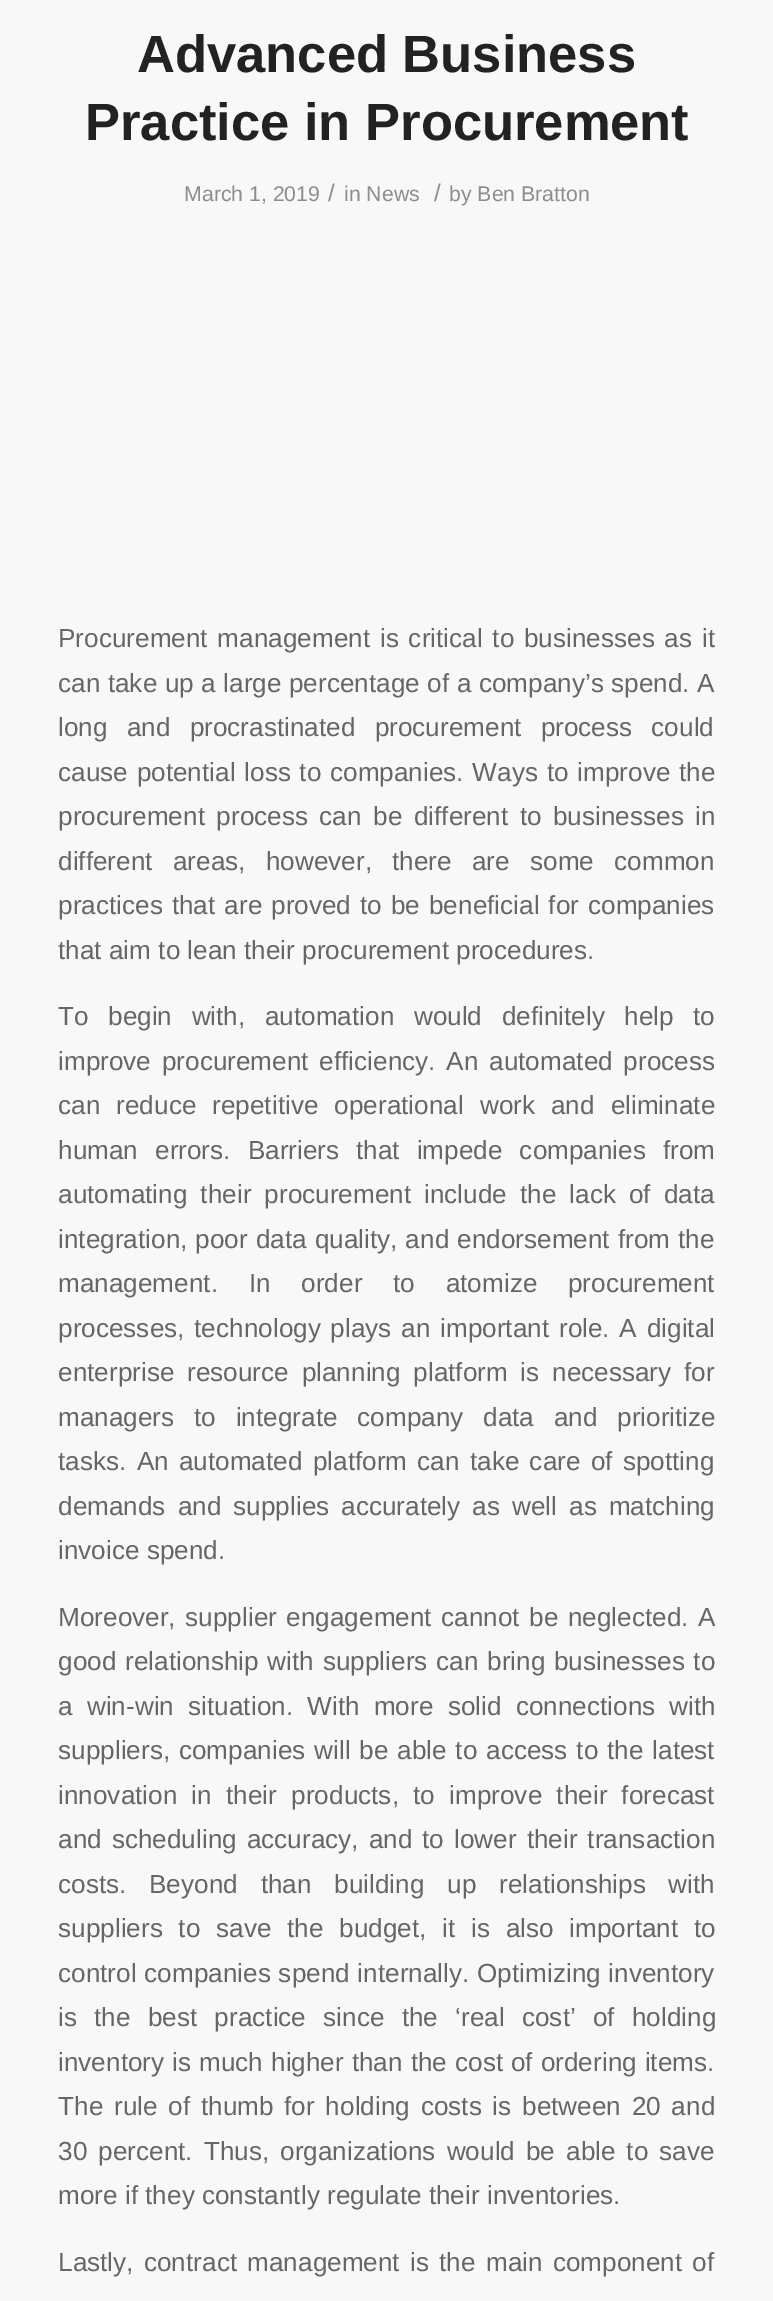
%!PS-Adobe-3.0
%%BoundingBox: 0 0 773 2301
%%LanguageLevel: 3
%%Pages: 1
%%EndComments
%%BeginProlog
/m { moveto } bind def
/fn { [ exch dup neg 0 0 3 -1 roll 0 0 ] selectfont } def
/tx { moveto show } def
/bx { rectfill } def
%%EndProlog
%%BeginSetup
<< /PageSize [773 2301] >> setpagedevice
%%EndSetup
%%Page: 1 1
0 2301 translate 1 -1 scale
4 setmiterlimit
0.973 setgray
0 0 773 2301 bx
/LiberationSans-Bold 52.5 fn
0.133 setgray
(Advanced Business) 137 72 tx
(Practice in Procurement) 85 140 tx
/LiberationSans-Regular 21.25 fn
0.553 setgray
(March 1, 2019) 184 201 tx
/LiberationSans-Regular 24 fn
(/) 328 201 tx
/LiberationSans-Regular 21.25 fn
(in News) 344 201 tx
/LiberationSans-Regular 24 fn
(/) 434 201 tx
/LiberationSans-Regular 21.25 fn
(by Ben Bratton) 449 201 tx
/LiberationSans-Regular 26.15 fn
0.4 setgray
58 647 m 2.5 0 32 (Procurement management is critical to businesses as it) widthshow
58 692 m 0.25 0 32 (can take up a large percentage of a company’s spend. A) widthshow
58 736 m 12 0 32 (long and procrastinated procurement process could) widthshow
58 781 m 1.5 0 32 (cause potential loss to companies. Ways to improve the) widthshow
58 825 m 4.25 0 32 (procurement process can be different to businesses in) widthshow
58 870 m 13 0 32 (different areas, however, there are some common) widthshow
58 914 m 1.75 0 32 (practices that are proved to be beneficial for companies) widthshow
(that aim to lean their procurement procedures.) 58 959 tx
58 1025 m 12.25 0 32 (To begin with, automation would definitely help to) widthshow
58 1070 m 3.5 0 32 (improve procurement efficiency. An automated process) widthshow
58 1114 m 8.75 0 32 (can reduce repetitive operational work and eliminate) widthshow
58 1159 m 9.75 0 32 (human errors. Barriers that impede companies from) widthshow
58 1203 m 5.75 0 32 (automating their procurement include the lack of data) widthshow
58 1248 m 0.75 0 32 (integration, poor data quality, and endorsement from the) widthshow
58 1292 m 23.5 0 32 (management. In order to atomize procurement) widthshow
58 1337 m 2.5 0 32 (processes, technology plays an important role. A digital) widthshow
58 1381 m 5.5 0 32 (enterprise resource planning platform is necessary for) widthshow
58 1426 m 12.5 0 32 (managers to integrate company data and prioritize) widthshow
58 1470 m 3 0 32 (tasks. An automated platform can take care of spotting) widthshow
58 1515 m 4.75 0 32 (demands and supplies accurately as well as matching) widthshow
(invoice spend.) 58 1559 tx
58 1626 m 2.25 0 32 (Moreover, supplier engagement cannot be neglected. A) widthshow
58 1670 m 1.5 0 32 (good relationship with suppliers can bring businesses to) widthshow
58 1715 m 7 0 32 (a win-win situation. With more solid connections with) widthshow
58 1759 m 1.6 0 32 (suppliers, companies will be able to access to the latest) widthshow
58 1804 m 7 0 32 (innovation in their products, to improve their forecast) widthshow
58 1848 m 2.75 0 32 (and scheduling accuracy, and to lower their transaction) widthshow
58 1893 m 15.5 0 32 (costs. Beyond than building up relationships with) widthshow
58 1937 m 8.5 0 32 (suppliers to save the budget, it is also important to) widthshow
58 1982 m 0.5 0 32 (control companies spend internally. Optimizing inventory) widthshow
58 2026 m 10 0 32 (is the best practice since the ‘real cost’ of holding) widthshow
58 2071 m 0.75 0 32 (inventory is much higher than the cost of ordering items.) widthshow
58 2115 m 3.5 0 32 (The rule of thumb for holding costs is between 20 and) widthshow
58 2160 m 3.75 0 32 (30 percent. Thus, organizations would be able to save) widthshow
(more if they constantly regulate their inventories.) 58 2204 tx
58 2271 m 3 0 32 (Lastly, contract management is the main component of) widthshow
showpage
%%EOF
